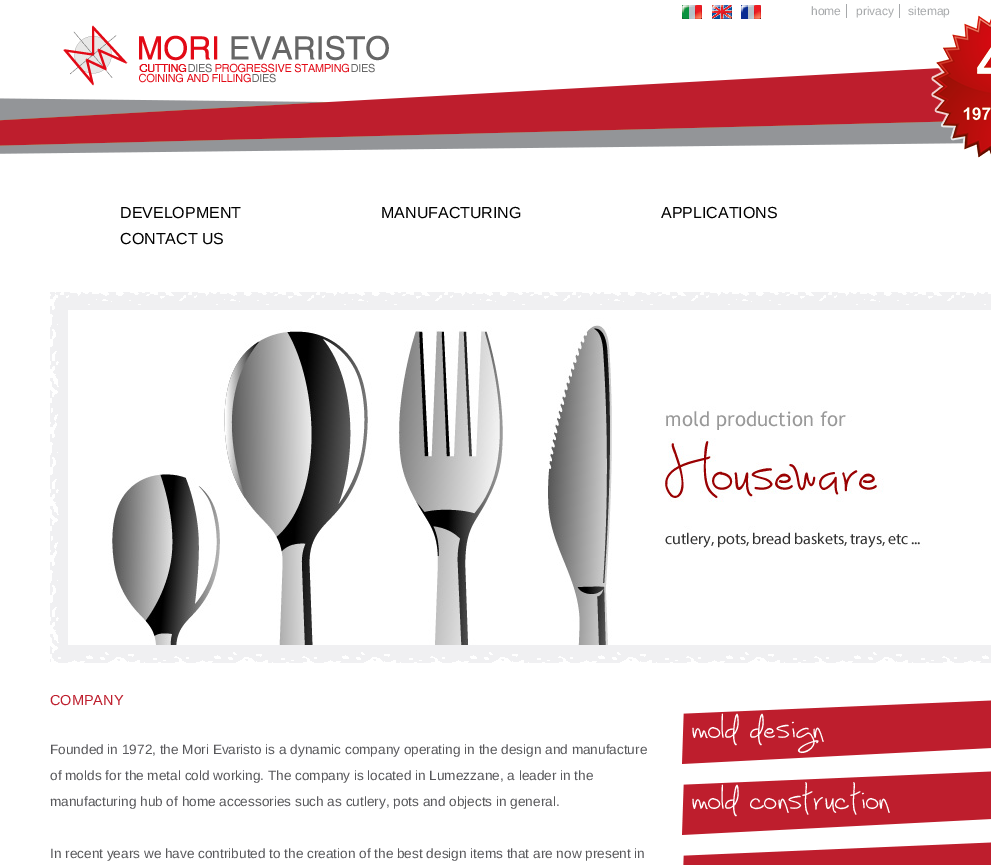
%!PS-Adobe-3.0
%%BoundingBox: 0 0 991 865
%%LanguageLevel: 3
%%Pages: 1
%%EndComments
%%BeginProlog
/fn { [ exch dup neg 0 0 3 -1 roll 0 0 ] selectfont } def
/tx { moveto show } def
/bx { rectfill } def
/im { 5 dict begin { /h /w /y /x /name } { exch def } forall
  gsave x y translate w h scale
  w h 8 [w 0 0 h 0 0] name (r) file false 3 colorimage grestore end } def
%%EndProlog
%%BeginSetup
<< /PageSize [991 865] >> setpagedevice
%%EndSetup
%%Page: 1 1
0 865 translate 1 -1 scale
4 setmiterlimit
1 setgray
0 0 991 865 bx
(image0.raw) 0 68 966 86 im
(image1.raw) 931 15 60 143 im
(image2.raw) 682 5 20 14 im
(image3.raw) 712 5 20 14 im
(image4.raw) 741 5 20 14 im
/LiberationSans-Regular 12 fn
0.655 0.663 0.671 setrgbcolor
(home) 811 15 tx
846 4 1 14 bx
(privacy) 856 15 tx
899 4 1 14 bx
(sitemap) 908 15 tx
(image5.raw) 63 25 326 61 im
/LiberationSans-Regular 16 fn
0 setgray
(DEVELOPMENT) 120 218 tx
(MANUFACTURING) 381 218 tx
(APPLICATIONS) 661 218 tx
(CONTACT US) 120 244 tx
(image6.raw) 50 292 941 371 im
(image7.raw) 68 310 923 335 im
/LiberationSans-Regular 14.5 fn
0.745 0.118 0.176 setrgbcolor
(COMPANY) 50 705 tx
/LiberationSans-Regular 13.6 fn
0.345 0.345 0.357 setrgbcolor
(Founded in 1972, the Mori Evaristo is a dynamic company operating in the design and manufacture) 50 754 tx
(of molds for the metal cold working. The company is located in Lumezzane, a leader in the) 50 780 tx
(manufacturing hub of home accessories such as cutlery, pots and objects in general.) 50 806 tx
(In recent years we have contributed to the creation of the best design items that are now present in) 50 858 tx
(image8.raw) 682 700 309 64 im
/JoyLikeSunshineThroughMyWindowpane-Regular 30.5 fn
1 setgray
(mold design) 692 738 tx
(image8.raw) 682 771 309 64 im
(mold construction) 692 809 tx
(image9.raw) 683 842 308 23 im
showpage
%%EOF
